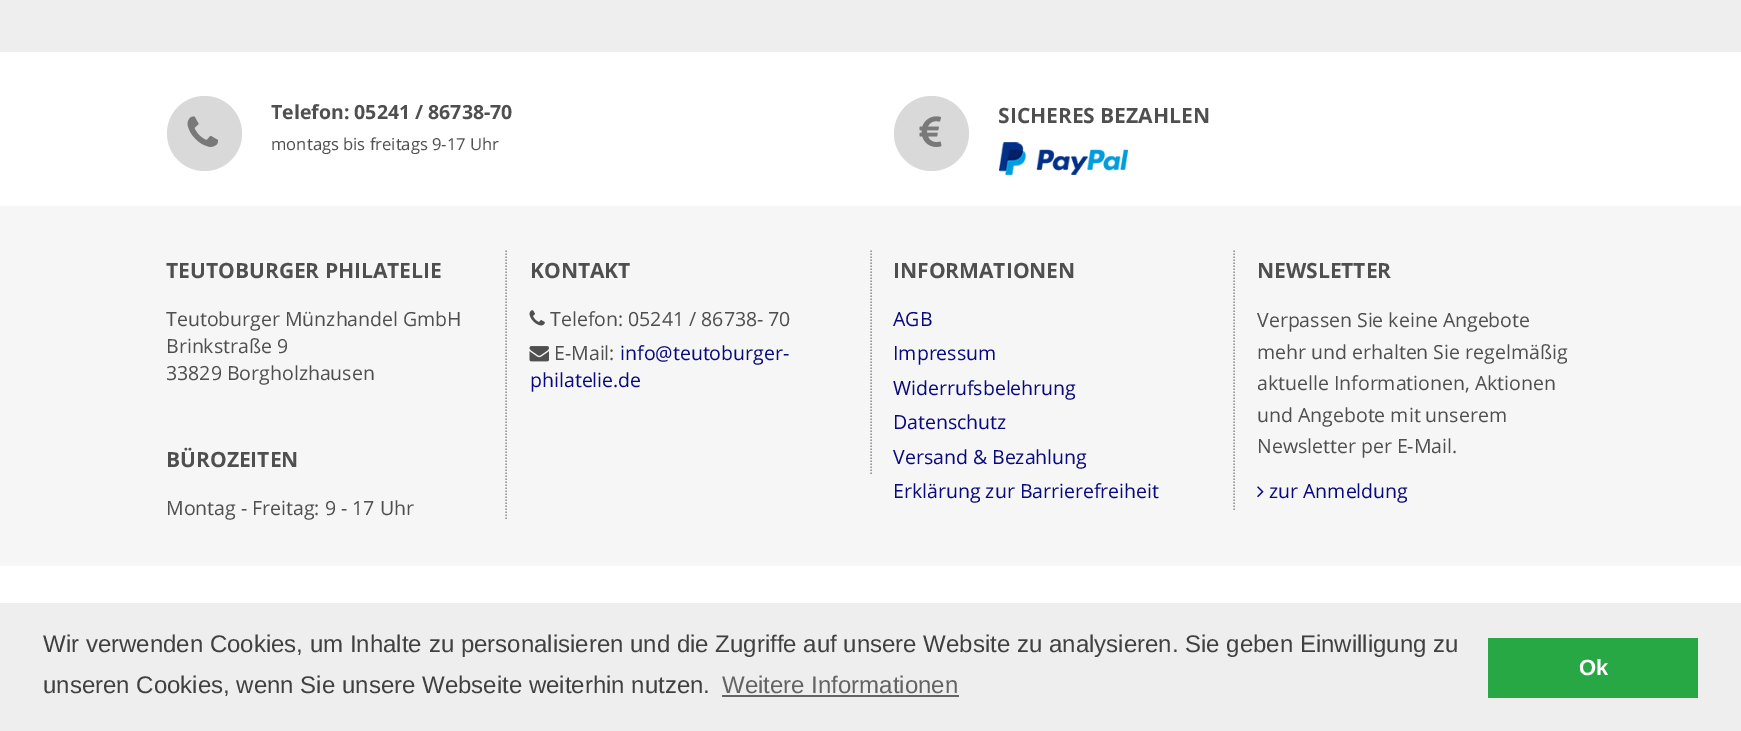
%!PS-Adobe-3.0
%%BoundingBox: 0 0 1741 731
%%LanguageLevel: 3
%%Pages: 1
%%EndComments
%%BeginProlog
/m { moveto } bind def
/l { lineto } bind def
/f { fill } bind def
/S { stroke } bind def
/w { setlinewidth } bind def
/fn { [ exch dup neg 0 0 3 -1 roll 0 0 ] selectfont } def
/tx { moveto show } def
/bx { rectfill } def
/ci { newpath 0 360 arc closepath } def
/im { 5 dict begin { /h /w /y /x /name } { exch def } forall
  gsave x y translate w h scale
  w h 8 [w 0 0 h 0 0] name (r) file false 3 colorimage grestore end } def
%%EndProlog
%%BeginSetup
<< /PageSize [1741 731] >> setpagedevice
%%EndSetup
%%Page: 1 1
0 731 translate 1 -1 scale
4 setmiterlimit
0.933 setgray
0 0 1741 731 bx
1 setgray
0 52 1741 154 bx
0.851 setgray
204.5 133.5 37.5 ci f
(image0.raw) 187 116 32 31 im
/OpenSans-Bold 19.5 fn
0.31 setgray
(Telefon: 05241 / 86738-70) 271 119 tx
/OpenSans-Regular 16.6 fn
(montags bis freitags 9-17 Uhr) 271 150 tx
0.851 setgray
931.5 133.5 37.5 ci f
(image1.raw) 919 116 23 31 im
/OpenSans-Bold 21 fn
0.31 setgray
(SICHERES BEZAHLEN) 998 123 tx
(image2.raw) 999 142 129 33 im
0.965 setgray
0 206 1741 360 bx
0.6 setgray
1.5 w
[1.5 1.5] 0 setdash
506 250.5 m 506 520.5 l S
0.31 setgray
(TEUTOBURGER PHILATELIE) 166 278 tx
/OpenSans-Regular 19.5 fn
(Teutoburger Münzhandel GmbH) 166 326 tx
(Brinkstraße 9) 166 353 tx
(33829 Borgholzhausen) 166 380 tx
/OpenSans-Bold 21 fn
(BÜROZEITEN) 166 467 tx
/OpenSans-Regular 19.5 fn
(Montag - Freitag: 9 - 17 Uhr) 166 515 tx
0.6 setgray
871 250.5 m 871 475.5 l S
/OpenSans-Bold 21 fn
0.31 setgray
(KONTAKT) 530 278 tx
(image3.raw) 529 310 16 16 im
/OpenSans-Regular 19.5 fn
(Telefon: 05241 / 86738- 70) 550 326 tx
(image4.raw) 529 346 20 16 im
(E-Mail:) 554 360 tx
0.035 0.035 0.498 setrgbcolor
(info@teutoburger-) 620 360 tx
(philatelie.de) 530 387 tx
0.6 setgray
1234 250.5 m 1234 511.5 l S
/OpenSans-Bold 21 fn
0.31 setgray
(INFORMATIONEN) 893 278 tx
/OpenSans-Regular 19.5 fn
0.035 0.035 0.498 setrgbcolor
(AGB) 893 326 tx
(Impressum) 893 360 tx
(Widerrufsbelehrung) 893 395 tx
(Datenschutz) 893 429 tx
(Versand & Bezahlung) 893 464 tx
(Erklärung zur Barrierefreiheit) 893 498 tx
/OpenSans-Bold 21 fn
0.31 setgray
(NEWSLETTER) 1257 278 tx
/OpenSans-Regular 19.5 fn
(Verpassen Sie keine Angebote) 1257 327 tx
(mehr und erhalten Sie regelmäßig) 1257 359 tx
(aktuelle Informationen, Aktionen) 1257 390 tx
(und Angebote mit unserem) 1257 422 tx
(Newsletter per E-Mail.) 1257 453 tx
(image5.raw) 1257 486 7 12 im
0.035 0.035 0.498 setrgbcolor
(zur Anmeldung) 1269 498 tx
1 setgray
0 566 1741 37 bx
/LiberationSans-Regular 24 fn
0.251 setgray
(Wir verwenden Cookies, um Inhalte zu personalisieren und die Zugriffe auf unsere Website zu analysieren. Sie geben Einwilligung zu) 43 652 tx
(unseren Cookies, wenn Sie unsere Webseite weiterhin nutzen.) 43 693 tx
0.388 setgray
(Weitere Informationen) 722 693 tx
722 695 237 2 bx
0.157 0.655 0.271 setrgbcolor
1488 638 210 60 bx
/LiberationSans-Bold 22 fn
1 setgray
(Ok) 1579 675 tx
showpage
%%EOF
